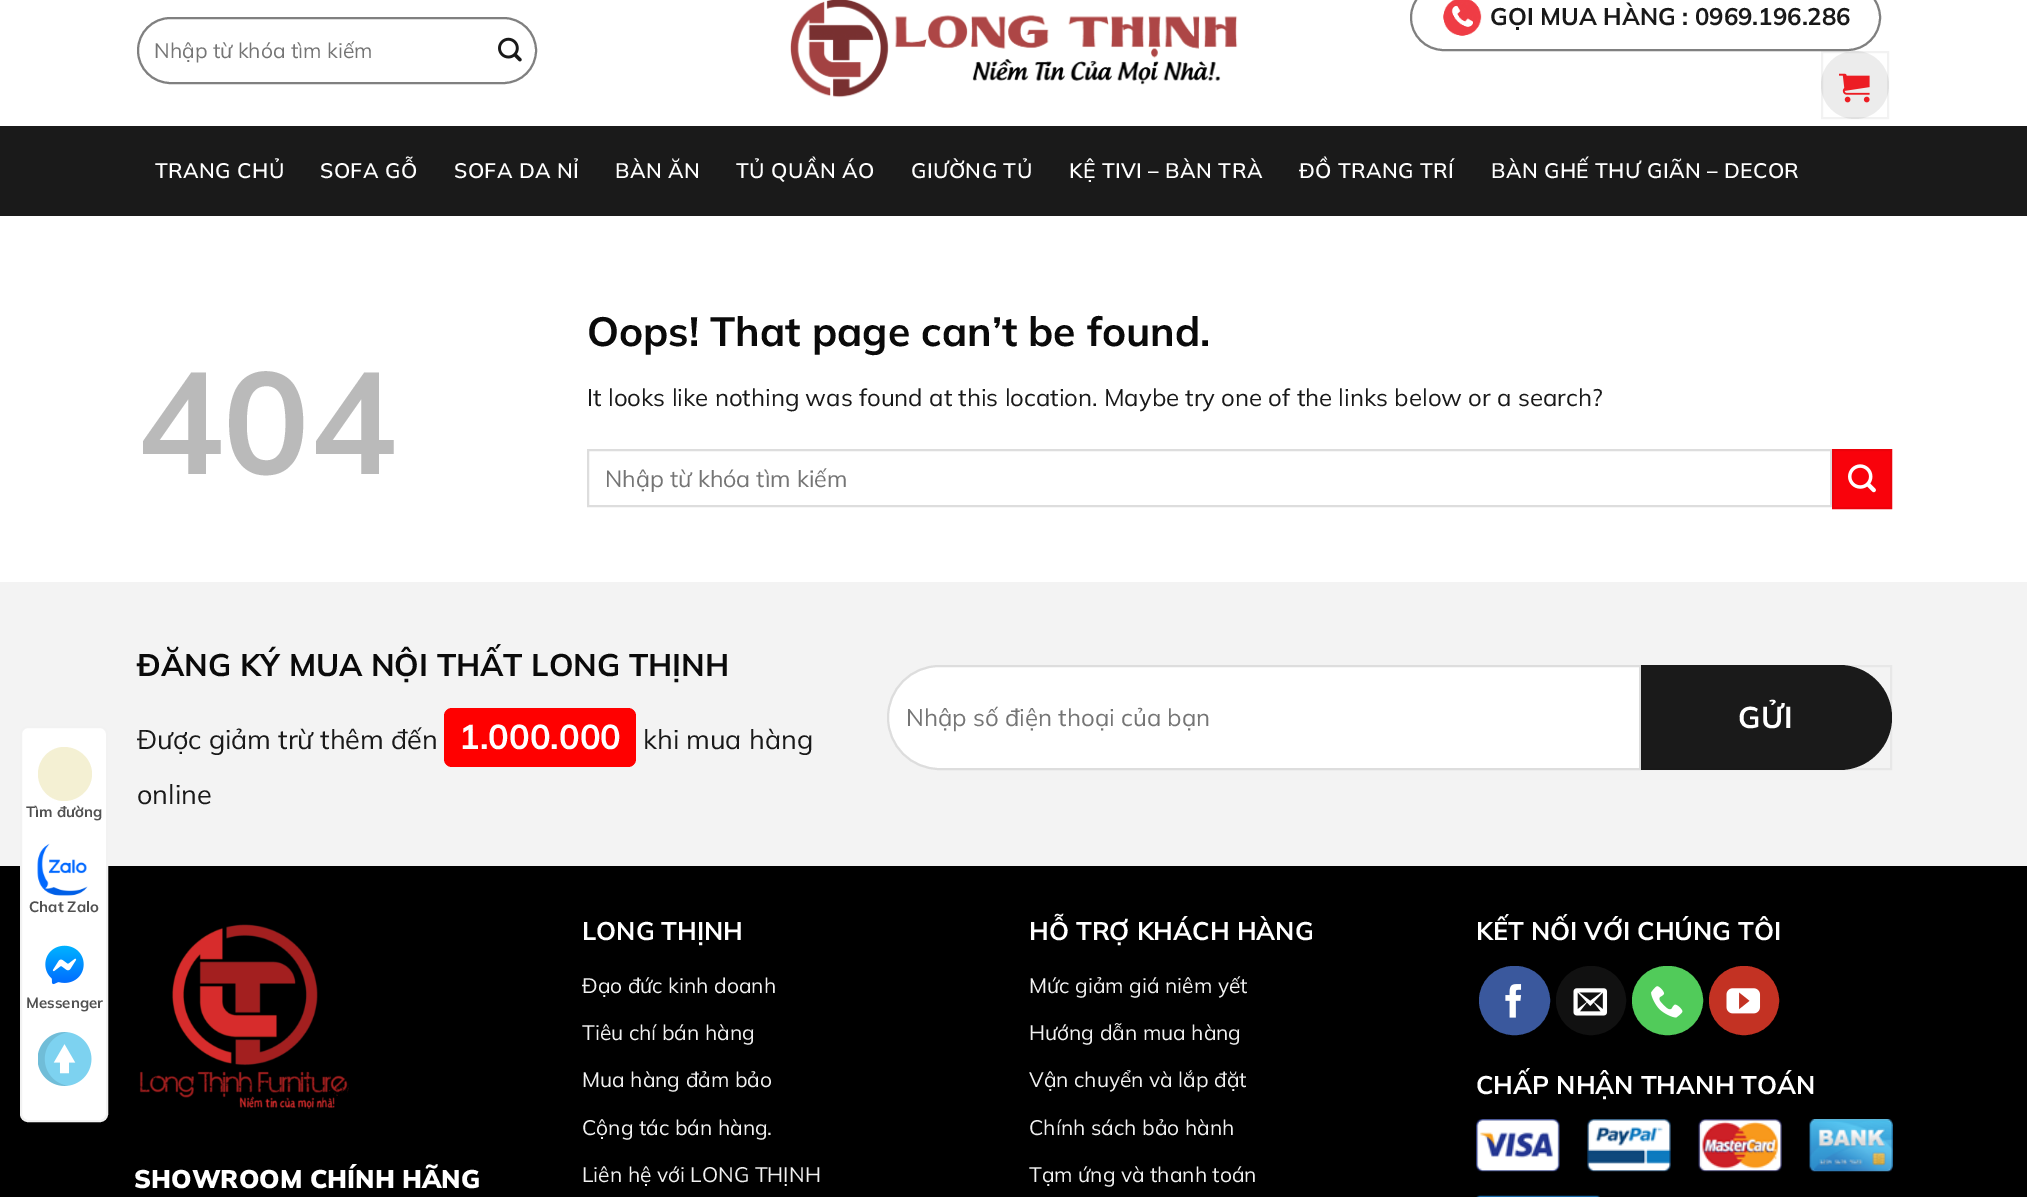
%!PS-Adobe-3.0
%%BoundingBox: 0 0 2027 1197
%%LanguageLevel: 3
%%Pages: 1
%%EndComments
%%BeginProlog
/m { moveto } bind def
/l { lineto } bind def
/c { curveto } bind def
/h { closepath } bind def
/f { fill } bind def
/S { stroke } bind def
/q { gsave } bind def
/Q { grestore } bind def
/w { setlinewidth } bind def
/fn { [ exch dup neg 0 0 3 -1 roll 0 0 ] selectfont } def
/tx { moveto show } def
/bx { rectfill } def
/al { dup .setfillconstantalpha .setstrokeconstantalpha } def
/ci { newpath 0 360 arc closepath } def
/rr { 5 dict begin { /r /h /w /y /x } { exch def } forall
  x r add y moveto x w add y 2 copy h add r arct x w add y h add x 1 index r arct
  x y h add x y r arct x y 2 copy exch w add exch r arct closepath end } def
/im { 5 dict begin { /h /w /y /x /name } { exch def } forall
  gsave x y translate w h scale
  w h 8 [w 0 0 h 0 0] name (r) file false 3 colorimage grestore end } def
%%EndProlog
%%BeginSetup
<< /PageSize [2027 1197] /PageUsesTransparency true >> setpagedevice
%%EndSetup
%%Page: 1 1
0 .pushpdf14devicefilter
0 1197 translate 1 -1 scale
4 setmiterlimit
1 setgray
0 0 2027 1197 bx
0.953 setgray
0 582 2027 284 bx
0 setgray
0 866 2027 331 bx
1 setgray
21 727 86 394 7 rr q f Q
0.949 setgray
2 w
S
0.957 0.941 0.827 setrgbcolor
64 747 m 79 747 92 759 92 774 c 92 789 79 801 64 801 c 50 801 38 789 38 774 c 38 759 50 747 64 747 c h f
/Mulish-Bold 15 fn
0.318 setgray
(Tìm đường) 26 817 tx
(image0.raw) 37 843 51 53 im
(Chat Zalo) 29 912 tx
(image1.raw) 45 945 39 40 im
(Messenger) 26 1008 tx
(image2.raw) 38 1032 54 54 im
(image3.raw) 790 0 448 98 im
(image4.raw) 1443 0 39 36 im
0.502 setgray
1411 -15 469 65 32.5 rr S
/Mulish-Bold 24 fn
0.098 setgray
(GỌI MUA HÀNG : 0969.196.286) 1490 25 tx
0.925 setgray
1855 85 34 ci f
0.05 al
0 setgray
1822 52 66 66 rectstroke
1 al
(image5.raw) 1839 73 31 30 im
0.502 setgray
138 18 398 65 32.5 rr S
/Mulish-Regular 21 fn
0.459 setgray
(Nhập từ khóa tìm kiếm) 154 58 tx
(image6.raw) 498 37 24 25 im
0.102 setgray
0 126 2027 90 bx
/Mulish-SemiBold 21 fn
1 setgray
155 178 m 0.4 0 (TRANG CHỦ) ashow
320 178 m 0.4 0 (SOFA GỖ) ashow
454 178 m 0.4 0 (SOFA DA NỈ) ashow
615 178 m 0.4 0 (BÀN ĂN) ashow
736 178 m 0.4 0 (TỦ QUẦN ÁO) ashow
911 178 m 0.4 0 (GIƯỜNG TỦ) ashow
1069 178 m 0.4 0 (KỆ TIVI – BÀN TRÀ) ashow
1299 178 m 0.4 0 (ĐỒ TRANG TRÍ) ashow
1491 178 m 0.4 0 (BÀN GHẾ THƯ GIÃN – DECOR) ashow
/Mulish-Bold 144 fn
0.729 setgray
(404) 137 474 tx
/Mulish-Bold 40.75 fn
0.039 setgray
(Oops! That page can’t be found.) 587 346 tx
/Mulish-Regular 24 fn
0.098 setgray
(It looks like nothing was found at this location. Maybe try one of the links below or a search?) 587 406 tx
0.867 setgray
588 450 1243 56 rectstroke
/Mulish-Regular 23.25 fn
0.459 setgray
(Nhập từ khóa tìm kiếm) 605 487 tx
0.976 0.008 0.043 setrgbcolor
1833 450 m 1891 450 l 1891 508 l 1833 508 l h q f Q
0.929 0.008 0.039 setrgbcolor
S
(image7.raw) 1848 464 28 29 im
/Mulish-Bold 31.25 fn
0.039 setgray
(ĐĂNG KÝ MUA NỘI THẤT LONG THỊNH) 137 676 tx
/Mulish-Regular 27 fn
0.098 setgray
(Được giảm trừ thêm đến) 137 749 tx
1 0 0 setrgbcolor
444 708 192 59 8 rr f
/Mulish-Bold 34.5 fn
1 setgray
(1.000.000) 459 749 tx
/Mulish-Regular 27 fn
0.098 setgray
(khi mua hàng) 643 749 tx
(online) 137 804 tx
1 setgray
939.5 666 m 1640 666 l 1640 769 l 939.5 769 l 911 769 888 746 888 717.5 c 888 689 911 666 939.5 666 c h q f Q
0.867 setgray
S
/Mulish-Regular 24 fn
0.459 setgray
(Nhập số điện thoại của bạn) 906 726 tx
0.102 setgray
1641 665 m 1839.5 665 l 1868.5 665 1892 688.5 1892 717.5 c 1892 746.5 1868.5 770 1839.5 770 c 1641 770 l h f
0.05 al
0 setgray
1642 666 249 103 rectstroke
/Mulish-Bold 30 fn
1 al
1 setgray
1738 728 m 1 0 (GỬI) ashow
(image8.raw) 139 924 210 186 im
/Mulish-Black 25.5 fn
(SHOWROOM CHÍNH HÃNG) 134 1188 tx
/Mulish-Bold 25.5 fn
(LONG THỊNH) 582 940 tx
/Mulish-Regular 21 fn
0.945 setgray
(Đạo đức kinh doanh) 582 993 tx
(Tiêu chí bán hàng) 582 1040 tx
(Mua hàng đảm bảo) 582 1087 tx
(Cộng tác bán hàng.) 582 1135 tx
(Liên hệ với LONG THỊNH) 582 1182 tx
/Mulish-Bold 25.5 fn
1 setgray
(HỖ TRỢ KHÁCH HÀNG) 1029 940 tx
/Mulish-Regular 21 fn
0.945 setgray
(Mức giảm giá niêm yết) 1029 993 tx
(Hướng dẫn mua hàng) 1029 1040 tx
(Vận chuyển và lắp đặt) 1029 1087 tx
(Chính sách bảo hành) 1029 1135 tx
(Tạm ứng và thanh toán) 1029 1182 tx
/Mulish-Bold 25.5 fn
1 setgray
(KẾT NỐI VỚI CHÚNG TÔI) 1476 940 tx
0.227 0.345 0.616 setrgbcolor
1480 967 69 67 33.5 rr q f Q
S
(image9.raw) 1505 984 17 34 im
0.067 setgray
1557 967 68 67 33.5 rr q f Q
S
(image10.raw) 1573 988 35 28 im
0.318 0.796 0.353 setrgbcolor
1633 967 69 67 33.5 rr q f Q
S
(image11.raw) 1651 986 32 32 im
0.765 0.196 0.137 setrgbcolor
1710 967 68 67 33.5 rr q f Q
S
(image12.raw) 1726 988 35 26 im
1 setgray
(CHẤP NHẬN THANH TOÁN) 1476 1094 tx
(image13.raw) 1476 1119 417 53 im
(image14.raw) 1476 1195 124 2 im
.poppdf14devicefilter showpage
%%EOF
